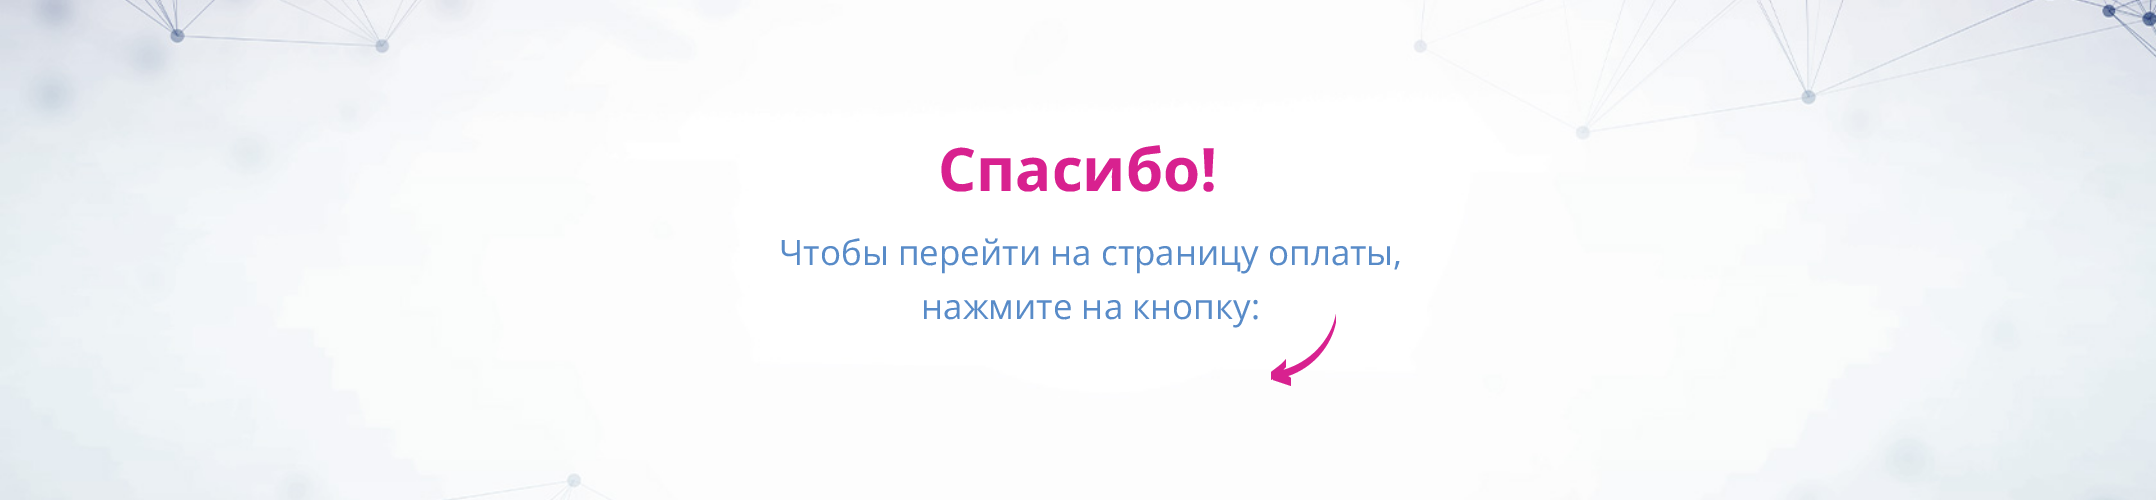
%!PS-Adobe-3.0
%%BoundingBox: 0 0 2156 500
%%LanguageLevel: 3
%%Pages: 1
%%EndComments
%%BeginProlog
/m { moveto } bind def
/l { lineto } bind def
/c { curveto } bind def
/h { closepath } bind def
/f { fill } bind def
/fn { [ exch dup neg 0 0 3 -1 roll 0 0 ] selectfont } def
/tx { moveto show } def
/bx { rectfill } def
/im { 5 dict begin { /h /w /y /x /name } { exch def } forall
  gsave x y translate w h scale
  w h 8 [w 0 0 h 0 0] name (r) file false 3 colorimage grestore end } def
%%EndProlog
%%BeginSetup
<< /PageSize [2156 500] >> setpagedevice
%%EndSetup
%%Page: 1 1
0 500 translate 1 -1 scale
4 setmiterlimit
1 setgray
0 0 2156 500 bx
(image0.raw) 0 0 2156 500 im
/OpenSans-Bold 60 fn
0.847 0.129 0.561 setrgbcolor
(Спасибо!) 938 191 tx
/OpenSans-Regular 35 fn
0.345 0.545 0.784 setrgbcolor
(Чтобы перейти на страницу оплаты,) 779 265 tx
(нажмите на кнопку:) 921 319 tx
0.847 0.129 0.561 setrgbcolor
1336 322 m 1331 347 1312 368 1288 376 c 1291 378 l 1291 386 l 1273 380 l 1273 379 l 1271 380 l 1271 372 l 1275 369 l 1279 366 1283 363 1286 359 c 1286 367 l 1283 370 l 1309 363 1331 341 1336 314 c h f
showpage
%%EOF
